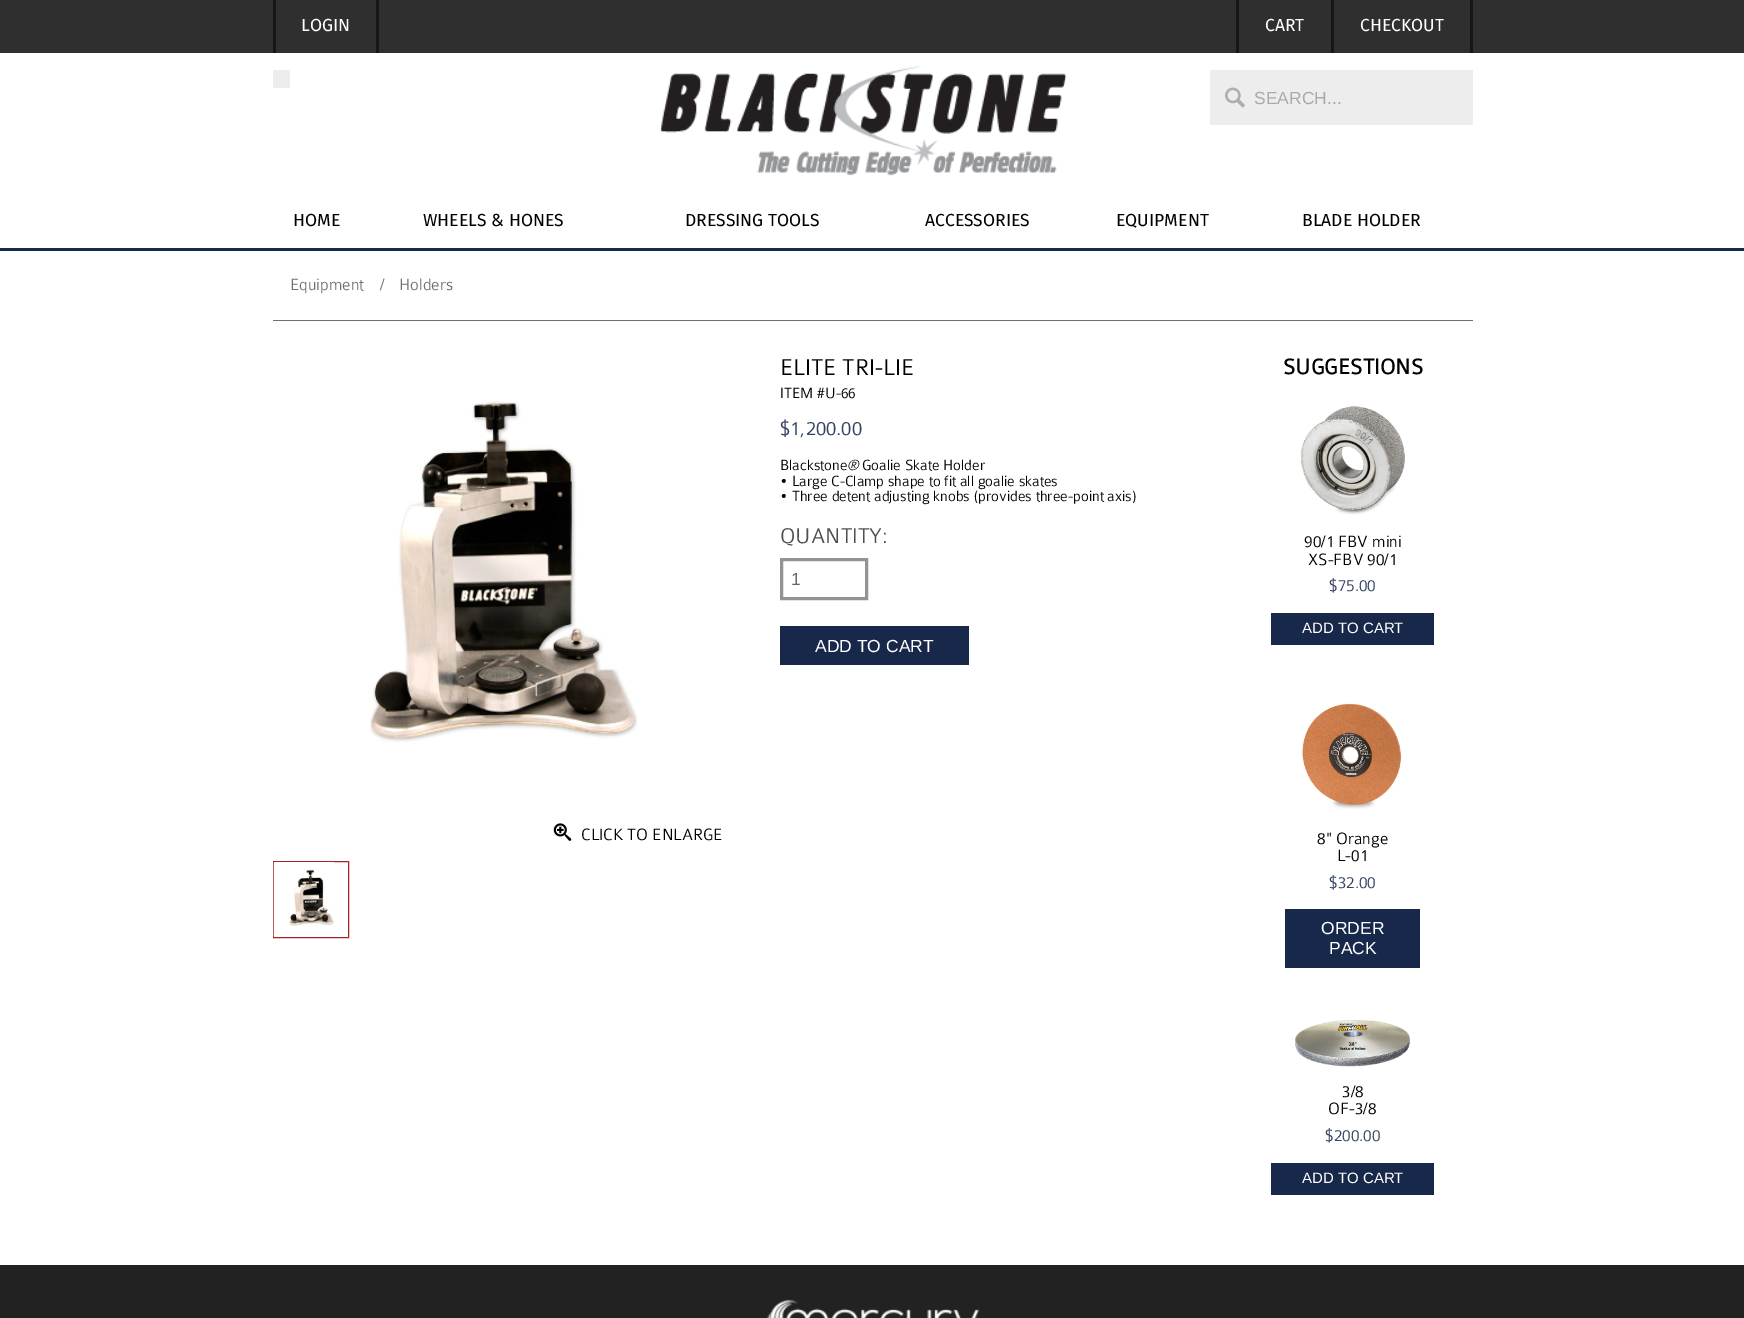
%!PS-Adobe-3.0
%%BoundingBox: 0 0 1744 1318
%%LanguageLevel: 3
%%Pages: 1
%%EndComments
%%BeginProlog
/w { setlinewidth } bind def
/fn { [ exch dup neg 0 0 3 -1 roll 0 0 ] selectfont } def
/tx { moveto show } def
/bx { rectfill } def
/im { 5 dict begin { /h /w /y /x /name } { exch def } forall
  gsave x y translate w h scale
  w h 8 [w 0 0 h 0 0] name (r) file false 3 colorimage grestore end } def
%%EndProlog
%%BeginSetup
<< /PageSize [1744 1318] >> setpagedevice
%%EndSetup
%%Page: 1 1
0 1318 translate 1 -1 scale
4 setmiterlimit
1 setgray
0 0 1744 1318 bx
0.184 setgray
0 0 1744 53 bx
0.086 setgray
376 0 3 53 bx
273 0 3 53 bx
/FiraSans-Regular 17.5 fn
1 setgray
(LOGIN) 301 31 tx
0.086 setgray
1331 0 3 53 bx
1236 0 3 53 bx
1 setgray
(CART) 1265 31 tx
0.086 setgray
1470 0 3 53 bx
1 setgray
(CHECKOUT) 1360 31 tx
(image0.raw) 660 66 407 110 im
0.929 setgray
273 70 17 18 bx
1210 70 263 55 bx
(image1.raw) 1225 87 20 21 im
/LiberationSans-Regular 17.5 fn
0.667 setgray
(SEARCH...) 1254 104 tx
0.094 0.157 0.29 setrgbcolor
0 248 1744 3 bx
/FiraSans-Regular 17.5 fn
0 setgray
(HOME) 293 226 tx
(WHEELS & HONES) 423 226 tx
(DRESSING TOOLS) 685 226 tx
(ACCESSORIES) 925 226 tx
(EQUIPMENT) 1116 226 tx
(BLADE HOLDER) 1302 226 tx
0.439 setgray
273 320 1200 1 bx
/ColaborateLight-Light 17.5 fn
(Equipment) 290 290 tx
(/) 380 290 tx
(Holders) 399 290 tx
/ColaborateLight-Light 24.5 fn
0 setgray
(ELITE TRI-LIE) 780 375 tx
/ColaborateLight-Light 15.75 fn
(ITEM #U-66) 780 398 tx
/ColaborateLight-Light 21 fn
0.208 0.263 0.38 setrgbcolor
($1,200.00) 780 435 tx
/ColaborateLight-Light 15.75 fn
0 setgray
(Blackstone) 780 470 tx
/ColaborateLight-LightItalic 15.75 fn
(®) 847 470 tx
/ColaborateLight-Light 15.75 fn
(Goalie Skate Holder) 862 470 tx
(• Large C-Clamp shape to fit all goalie skates) 780 486 tx
(• Three detent adjusting knobs \(provides three-point axis\)) 780 501 tx
/ColaborateLight-Light 22.75 fn
0.31 setgray
(QUANTITY:) 780 543 tx
0.576 setgray
3 w
781.5 559.5 85 39 rectstroke
/LiberationSans-Regular 17.5 fn
0.4 setgray
(1) 791 585 tx
0.094 0.157 0.29 setrgbcolor
780 626 189 39 bx
1 setgray
(ADD TO CART) 815 652 tx
(image2.raw) 370 401 268 342 im
(image3.raw) 553 823 19 18 im
/ColaborateLight-Light 17.5 fn
0 setgray
(CLICK TO ENLARGE) 581 840 tx
0.663 0.137 0.137 setrgbcolor
1 w
273.5 861.5 75 76 rectstroke
(image4.raw) 273 862 61 75 im
/ColaborateLight-Bold 22.75 fn
0 setgray
(SUGGESTIONS) 1283 374 tx
(image5.raw) 1300 406 105 109 im
/ColaborateLight-Light 17.5 fn
(90/1 FBV mini) 1304 547 tx
(XS-FBV 90/1) 1308 565 tx
0.208 0.263 0.38 setrgbcolor
($75.00) 1329 591 tx
0.094 0.157 0.29 setrgbcolor
1271 613 163 32 bx
/LiberationSans-Regular 15 fn
1 setgray
(ADD TO CART) 1302 633 tx
(image6.raw) 1302 702 100 107 im
/ColaborateLight-Light 17.5 fn
0 setgray
(8" Orange) 1317 844 tx
(L-01) 1337 861 tx
0.208 0.263 0.38 setrgbcolor
($32.00) 1329 888 tx
0.094 0.157 0.29 setrgbcolor
1285 909 135 59 bx
/LiberationSans-Regular 17.5 fn
1 setgray
(ORDER) 1321 934 tx
(PACK) 1329 954 tx
(image7.raw) 1295 1020 115 47 im
/ColaborateLight-Light 17.5 fn
0 setgray
(3/8) 1342 1097 tx
(OF-3/8) 1328 1114 tx
0.208 0.263 0.38 setrgbcolor
($200.00) 1325 1141 tx
0.094 0.157 0.29 setrgbcolor
1271 1163 163 32 bx
/LiberationSans-Regular 15 fn
1 setgray
(ADD TO CART) 1302 1183 tx
0.133 setgray
0 1265 1744 53 bx
(image8.raw) 767 1299 212 19 im
showpage
%%EOF
